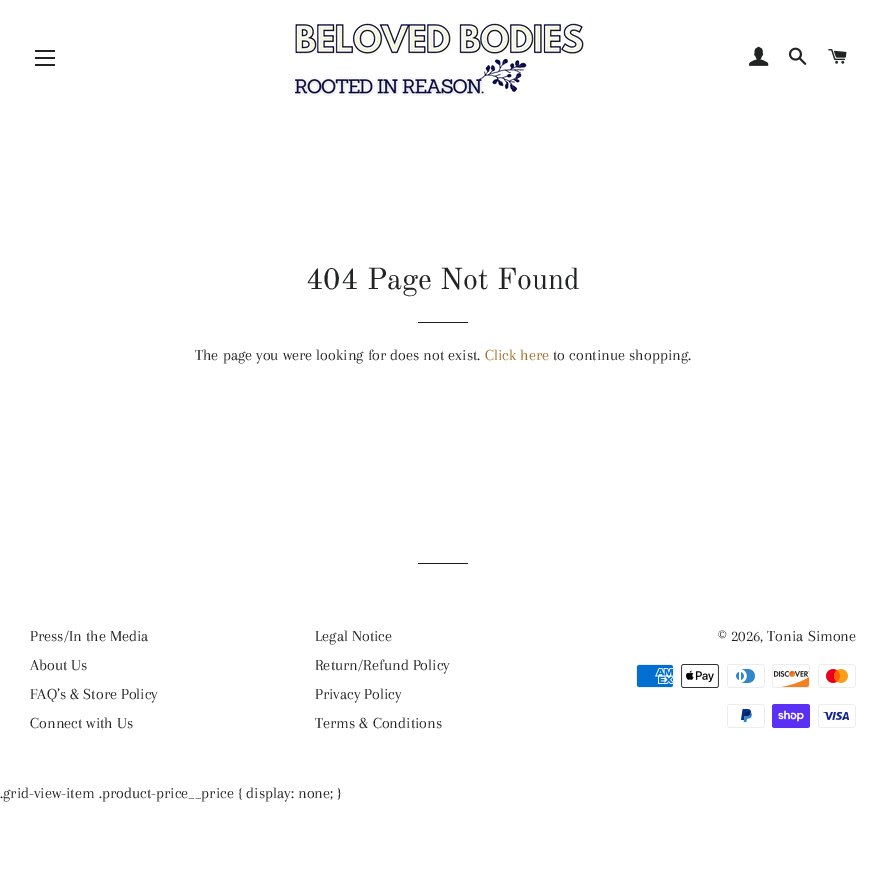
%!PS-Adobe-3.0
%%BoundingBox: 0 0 886 871
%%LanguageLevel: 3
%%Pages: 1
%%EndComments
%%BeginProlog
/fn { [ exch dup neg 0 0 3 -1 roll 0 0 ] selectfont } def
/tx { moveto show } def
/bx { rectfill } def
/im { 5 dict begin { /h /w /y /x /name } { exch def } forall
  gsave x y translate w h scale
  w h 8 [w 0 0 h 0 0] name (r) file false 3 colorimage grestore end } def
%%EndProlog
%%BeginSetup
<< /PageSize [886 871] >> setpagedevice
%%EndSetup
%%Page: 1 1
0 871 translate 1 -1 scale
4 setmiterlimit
1 setgray
0 0 886 871 bx
0.133 0.137 0.137 setrgbcolor
35 50 20 2 bx
35 57 20 2 bx
35 64 20 2 bx
(image0.raw) 294 23 290 73 im
(image1.raw) 749 46 20 20 im
(image2.raw) 789 47 18 18 im
(image3.raw) 828 49 19 15 im
/OldStandardTT-Regular 30 fn
(404 Page Not Found) 306 289 tx
0.11 0.114 0.114 setrgbcolor
418 322 50 1 bx
/Arapey-Regular 16 fn
0.133 0.137 0.137 setrgbcolor
(The page you were looking for does not exist.) 195 360 tx
0.635 0.42 0.145 setrgbcolor
(Click here) 485 360 tx
0.133 0.137 0.137 setrgbcolor
(to continue shopping.) 553 360 tx
0.11 0.114 0.114 setrgbcolor
418 563 50 1 bx
0.133 0.137 0.137 setrgbcolor
(Press/In the Media) 30 641 tx
(About Us) 30 670 tx
(FAQ’s & Store Policy) 30 699 tx
(Connect with Us) 30 728 tx
(Legal Notice) 315 641 tx
(Return/Refund Policy) 315 670 tx
(Privacy Policy) 315 699 tx
(Terms & Conditions) 315 728 tx
(© 2026, Tonia Simone) 718 641 tx
(image4.raw) 636 664 38 24 im
(image5.raw) 681 664 38 24 im
(image6.raw) 727 664 38 24 im
(image7.raw) 772 664 38 24 im
(image8.raw) 818 664 38 24 im
(image9.raw) 727 704 38 24 im
(image10.raw) 772 704 38 24 im
(image11.raw) 818 704 38 24 im
(.grid-view-item .product-price__price { display: none; }) 0 798 tx
showpage
%%EOF
